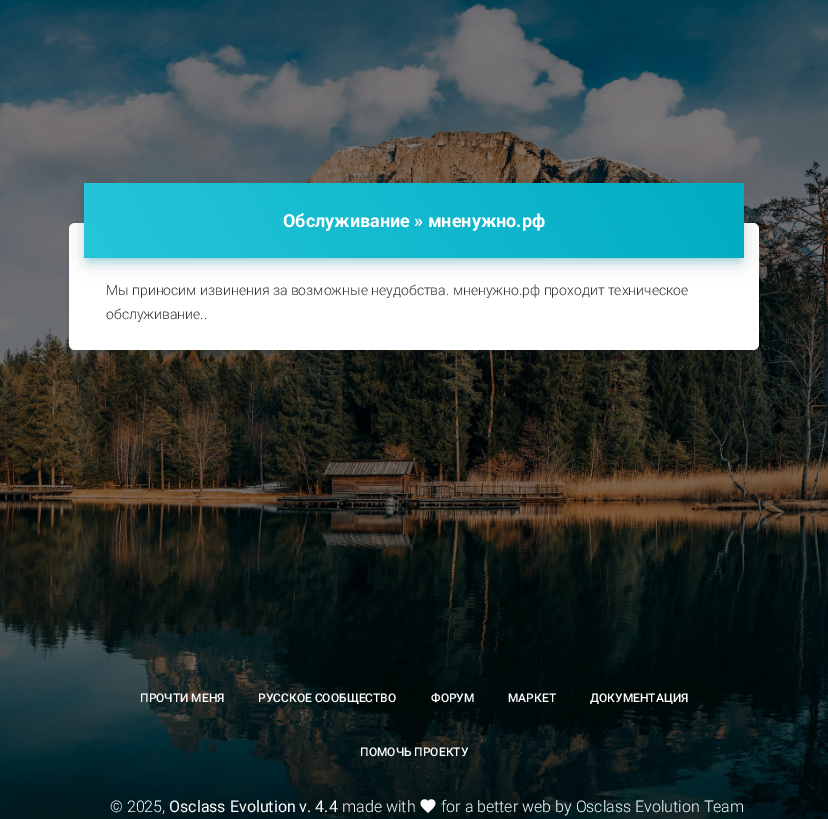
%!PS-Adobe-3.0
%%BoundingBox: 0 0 828 819
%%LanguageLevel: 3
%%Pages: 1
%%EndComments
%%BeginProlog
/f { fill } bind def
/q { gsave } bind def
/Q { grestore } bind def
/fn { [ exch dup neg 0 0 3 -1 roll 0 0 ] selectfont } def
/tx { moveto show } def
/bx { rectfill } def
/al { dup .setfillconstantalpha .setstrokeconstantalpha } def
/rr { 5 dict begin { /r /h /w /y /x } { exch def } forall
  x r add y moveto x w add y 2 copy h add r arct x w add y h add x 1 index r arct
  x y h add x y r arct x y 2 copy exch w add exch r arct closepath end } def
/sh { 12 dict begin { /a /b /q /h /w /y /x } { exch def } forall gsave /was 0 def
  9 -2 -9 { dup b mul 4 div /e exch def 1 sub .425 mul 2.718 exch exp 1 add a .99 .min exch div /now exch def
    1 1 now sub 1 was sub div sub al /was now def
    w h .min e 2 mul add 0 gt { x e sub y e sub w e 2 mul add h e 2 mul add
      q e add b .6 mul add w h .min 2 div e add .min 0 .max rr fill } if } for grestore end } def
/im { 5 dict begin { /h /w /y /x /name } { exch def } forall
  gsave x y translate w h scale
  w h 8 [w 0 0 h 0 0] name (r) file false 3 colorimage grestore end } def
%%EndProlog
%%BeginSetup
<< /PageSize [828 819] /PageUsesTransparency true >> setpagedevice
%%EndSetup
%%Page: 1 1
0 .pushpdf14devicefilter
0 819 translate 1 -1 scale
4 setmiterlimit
1 setgray
0 0 828 819 bx
(image0.raw) 0 0 828 819 im
0 setgray
69 224 690 127 6 2 0.14 sh
1 setgray
69 223 690 127 6 rr f
0 0.737 0.831 setrgbcolor
89 195 650 65 0 5 0.4 sh
0 setgray
84 187 660 75 3 10 0.14 sh
q 84 183 660 75 3 rr clip newpath
<< /ShadingType 2 /ColorSpace /DeviceRGB /Coords [150 373 678 68] /Extend [true true] /Function << /FunctionType 2 /Domain [0 1] /C0 [0.149 0.776 0.855] /C1 [0 0.675 0.757] /N 1 >> >> shfill Q
/Roboto-Bold 18 fn
1 setgray
(Обслуживание » мненужно.рф) 283 227 tx
/Roboto-Light 14 fn
0.2 setgray
(Мы приносим извинения за возможные неудобства. мненужно.рф проходит техническое) 106 295 tx
(обслуживание..) 106 319 tx
/Roboto-Medium 12 fn
1 setgray
(ПРОЧТИ МЕНЯ) 140 702 tx
(РУССКОЕ СООБЩЕСТВО) 258 702 tx
(ФОРУМ) 431 702 tx
(МАРКЕТ) 508 702 tx
(ДОКУМЕНТАЦИЯ) 590 702 tx
(ПОМОЧЬ ПРОЕКТУ) 360 756 tx
/Roboto-Light 16 fn
(© 2025,) 110 812 tx
/Roboto-Regular 16 fn
(Osclass Evolution v. 4.4) 169 812 tx
/Roboto-Light 16 fn
(made with) 342 812 tx
(image1.raw) 420 799 16 14 im
(for a better web by Osclass Evolution Team) 441 812 tx
.poppdf14devicefilter showpage
%%EOF
